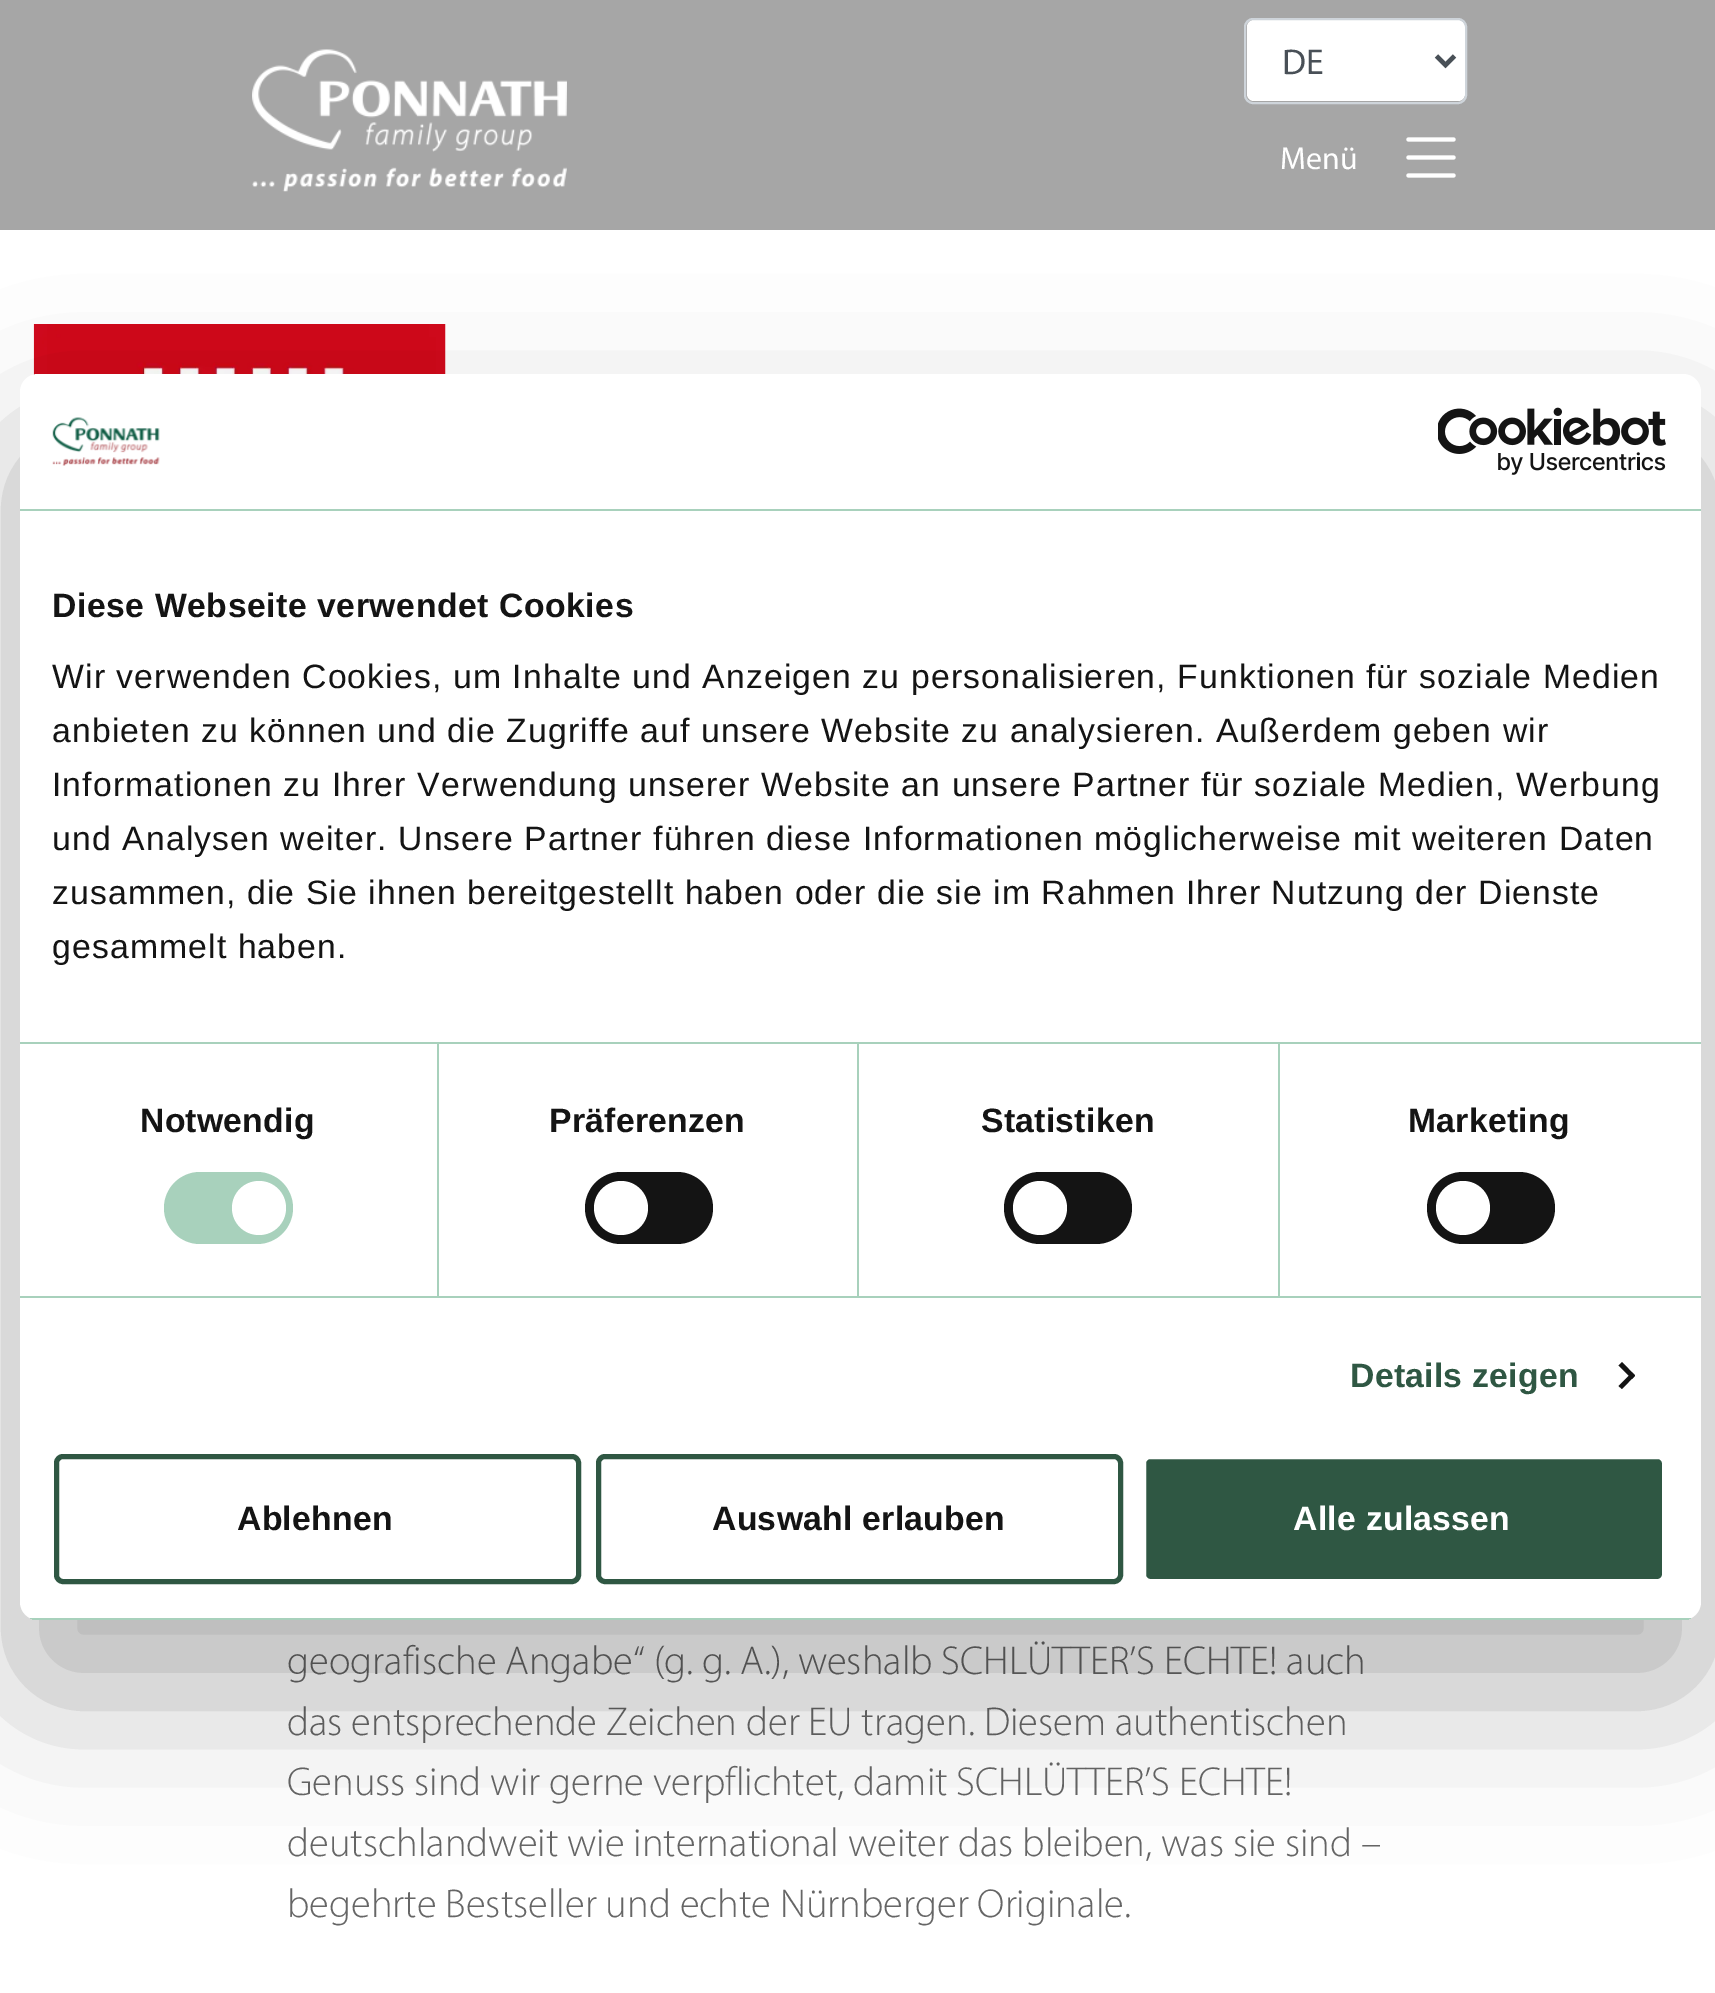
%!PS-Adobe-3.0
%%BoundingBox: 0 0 1715 1993
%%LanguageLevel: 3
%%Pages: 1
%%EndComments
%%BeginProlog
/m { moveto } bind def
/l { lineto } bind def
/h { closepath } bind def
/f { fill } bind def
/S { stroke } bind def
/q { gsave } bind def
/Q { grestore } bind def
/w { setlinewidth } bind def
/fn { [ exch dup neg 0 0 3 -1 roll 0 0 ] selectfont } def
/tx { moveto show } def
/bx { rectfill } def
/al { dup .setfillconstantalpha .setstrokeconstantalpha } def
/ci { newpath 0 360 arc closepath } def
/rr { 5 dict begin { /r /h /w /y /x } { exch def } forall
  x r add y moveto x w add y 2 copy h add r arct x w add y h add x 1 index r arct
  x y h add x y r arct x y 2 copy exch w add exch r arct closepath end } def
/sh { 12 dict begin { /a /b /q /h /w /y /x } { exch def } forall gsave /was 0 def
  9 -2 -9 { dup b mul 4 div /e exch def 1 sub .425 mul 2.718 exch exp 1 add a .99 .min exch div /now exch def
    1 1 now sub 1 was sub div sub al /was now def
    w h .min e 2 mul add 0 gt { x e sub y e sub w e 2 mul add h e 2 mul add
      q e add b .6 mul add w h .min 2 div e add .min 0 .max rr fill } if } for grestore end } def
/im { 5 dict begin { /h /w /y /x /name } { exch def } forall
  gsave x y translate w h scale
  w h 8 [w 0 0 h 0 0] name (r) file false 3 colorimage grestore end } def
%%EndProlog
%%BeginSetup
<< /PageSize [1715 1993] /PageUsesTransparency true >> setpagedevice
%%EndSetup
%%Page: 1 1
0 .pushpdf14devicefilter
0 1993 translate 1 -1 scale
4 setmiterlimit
1 setgray
0 0 1715 1993 bx
0.651 setgray
0 0 1715 230 bx
(image0.raw) 252 49 315 143 im
1 setgray
1247 20 218 81 7 rr f
0.808 0.831 0.855 setrgbcolor
2 w
1245 19 221 84 8 rr S
0.286 0.314 0.341 setrgbcolor
4.5 w
1436.5 56 m 1445.5 65 l 1454.5 56 l S
/Myriad-Regular 36 fn
(DE) 1282 74 tx
/Myriad-Regular 32 fn
1 setgray
(Menü) 1280 169 tx
(image1.raw) 1406 137 50 41 im
(image2.raw) 33 324 413 51 im
/Myriad-Light 40.5 fn
0.4 setgray
(geografische Angabe“ \(g. g. A.\), weshalb SCHLÜTTER’S ECHTE! auch) 287 1674 tx
(das entsprechende Zeichen der EU tragen. Diesem authentischen) 287 1735 tx
(Genuss sind wir gerne verpflichtet, damit SCHLÜTTER’S ECHTE!) 287 1795 tx
(deutschlandweit wie international weiter das bleiben, was sie sind –) 287 1856 tx
(begehrte Bestseller und echte Nürnberger Originale.) 287 1917 tx
0 setgray
20 446 1681 1246 18 76.5 0.3 sh
1 setgray
20 374 1681 1246 18 rr f
0.659 0.82 0.737 setrgbcolor
20 509 1681 2 bx
(image3.raw) 52 417 108 49 im
(image4.raw) 1438 407 228 68 im
20 1042 1681 2 bx
/LiberationSans-Bold 33.75 fn
0.078 setgray
52 617 m 0.55 0 (Diese Webseite verwendet Cookies) ashow
/LiberationSans-Regular 33.75 fn
52 688 m 1.12 0 (Wir verwenden Cookies, um Inhalte und Anzeigen zu personalisieren, Funktionen für soziale Medien) ashow
52 742 m 1.12 0 (anbieten zu können und die Zugriffe auf unsere Website zu analysieren. Außerdem geben wir) ashow
52 796 m 1.12 0 (Informationen zu Ihrer Verwendung unserer Website an unsere Partner für soziale Medien, Werbung) ashow
52 850 m 1.12 0 (und Analysen weiter. Unsere Partner führen diese Informationen möglicherweise mit weiteren Daten) ashow
52 904 m 1.12 0 (zusammen, die Sie ihnen bereitgestellt haben oder die sie im Rahmen Ihrer Nutzung der Dienste) ashow
52 958 m 1.12 0 (gesammelt haben.) ashow
0.659 0.82 0.737 setrgbcolor
20 1296 1681 2 bx
437 1044 2 252 bx
/LiberationSans-Bold 33.75 fn
0.078 setgray
140 1132 m 0.25 0 (Notwendig) ashow
0.659 0.82 0.737 setrgbcolor
164 1172 129 72 36 rr f
1 setgray
259 1208 27 ci f
0.659 0.82 0.737 setrgbcolor
857 1044 2 252 bx
0.078 setgray
549 1132 m 0.25 0 (Präferenzen) ashow
585 1172 128 72 36 rr f
1 setgray
621 1208 27 ci f
0.659 0.82 0.737 setrgbcolor
1278 1044 2 252 bx
0.078 setgray
981 1132 m 0.25 0 (Statistiken) ashow
1004 1172 128 72 36 rr f
1 setgray
1040 1208 27 ci f
0.078 setgray
1408 1132 m 0.25 0 (Marketing) ashow
1427 1172 128 72 36 rr f
1 setgray
1463 1208 27 ci f
0.184 0.341 0.263 setrgbcolor
1350 1387 m 0.25 0 (Details zeigen) ashow
0.078 setgray
1622 1362 m 1635 1375.5 l 1632 1379 l 1618.5 1365.5 l h f
1632 1372.5 m 1635 1375.5 l 1622 1389 l 1618.5 1386 l h f
q
20 374 1681 1246 18 rr clip newpath
0.659 0.82 0.737 setrgbcolor
30 1618 1661 2 bx
Q
0.184 0.341 0.263 setrgbcolor
5 w
56.5 1456.5 522 125 6.5 rr S
0.078 setgray
237 1530 m 0.25 0 (Ablehnen) ashow
0.184 0.341 0.263 setrgbcolor
598.5 1456.5 522 125 6.5 rr S
0.078 setgray
712 1530 m 0.25 0 (Auswahl erlauben) ashow
0.184 0.341 0.263 setrgbcolor
1143.5 1456.5 521 125 6.5 rr q f Q
1 setgray
S
1293 1530 m 0.25 0 (Alle zulassen) ashow
.poppdf14devicefilter showpage
%%EOF
